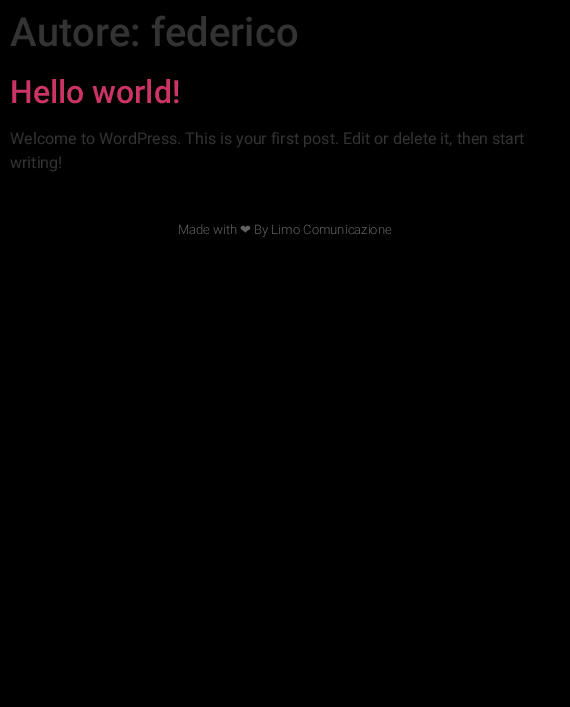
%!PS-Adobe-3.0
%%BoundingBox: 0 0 570 707
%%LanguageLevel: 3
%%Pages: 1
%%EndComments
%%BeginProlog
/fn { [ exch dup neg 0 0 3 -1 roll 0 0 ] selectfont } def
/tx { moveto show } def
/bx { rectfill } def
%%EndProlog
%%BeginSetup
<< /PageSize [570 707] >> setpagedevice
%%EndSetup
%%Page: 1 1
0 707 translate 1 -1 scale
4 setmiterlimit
0 setgray
0 0 570 707 bx
/Roboto-Medium 40 fn
0.2 setgray
(Autore: federico) 10 46 tx
/Roboto-Medium 32 fn
0.8 0.2 0.4 setrgbcolor
(Hello world!) 10 103 tx
/Roboto-Regular 16 fn
0.2 setgray
(Welcome to WordPress. This is your first post. Edit or delete it, then start) 10 144 tx
(writing!) 10 168 tx
/Roboto-Light 13 fn
0.388 setgray
(Made with) 178 234 tx
/DejaVuSans-Regular 13 fn
(❤) 240 234 tx
/Roboto-Light 13 fn
(By Limo Comunicazione) 254 234 tx
showpage
%%EOF
